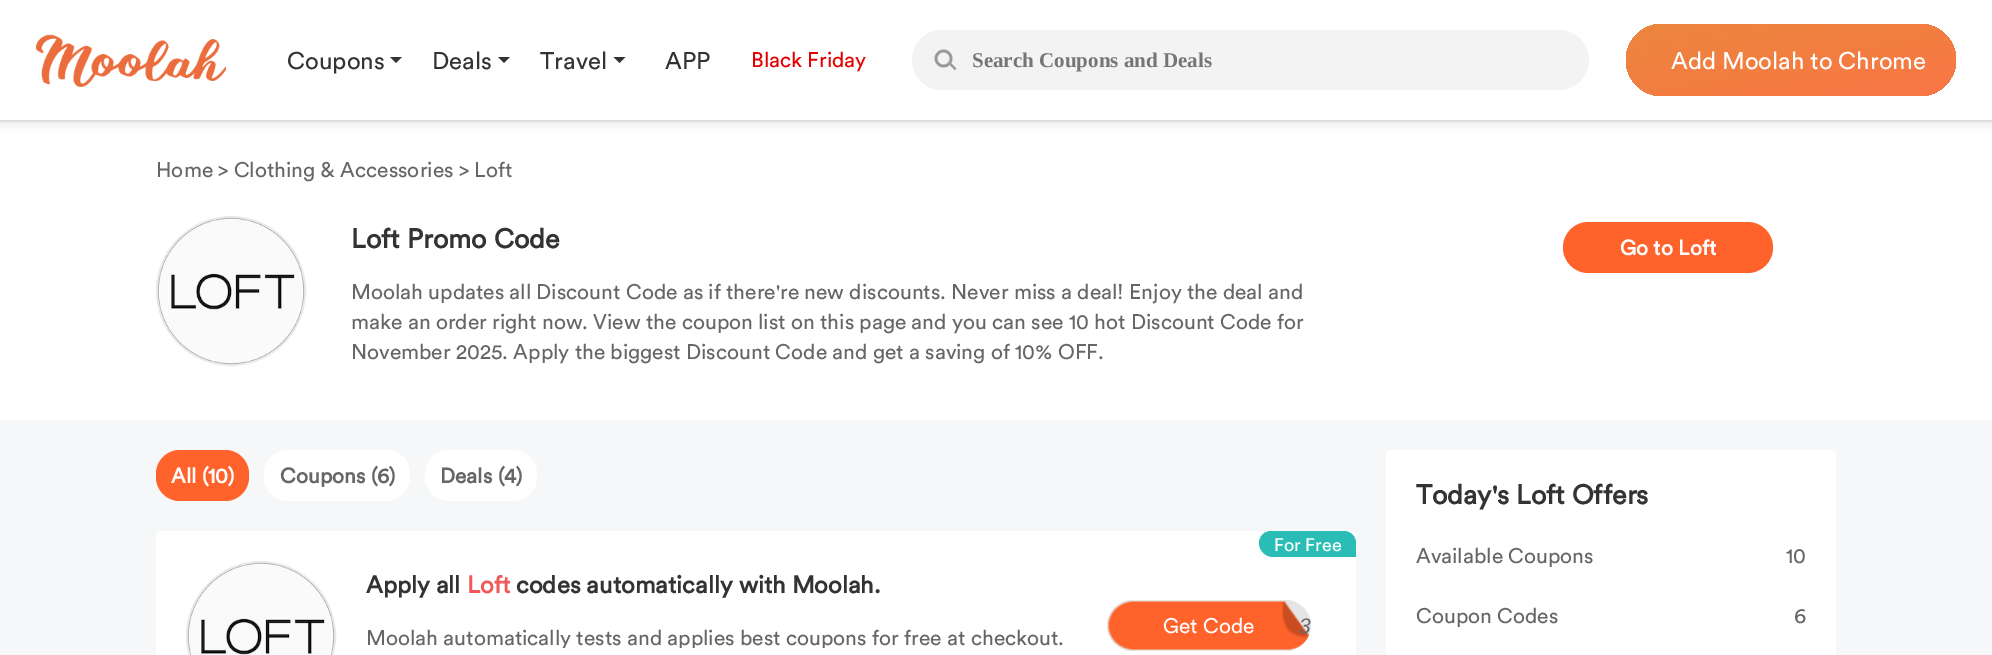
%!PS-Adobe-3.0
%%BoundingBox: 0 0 1992 655
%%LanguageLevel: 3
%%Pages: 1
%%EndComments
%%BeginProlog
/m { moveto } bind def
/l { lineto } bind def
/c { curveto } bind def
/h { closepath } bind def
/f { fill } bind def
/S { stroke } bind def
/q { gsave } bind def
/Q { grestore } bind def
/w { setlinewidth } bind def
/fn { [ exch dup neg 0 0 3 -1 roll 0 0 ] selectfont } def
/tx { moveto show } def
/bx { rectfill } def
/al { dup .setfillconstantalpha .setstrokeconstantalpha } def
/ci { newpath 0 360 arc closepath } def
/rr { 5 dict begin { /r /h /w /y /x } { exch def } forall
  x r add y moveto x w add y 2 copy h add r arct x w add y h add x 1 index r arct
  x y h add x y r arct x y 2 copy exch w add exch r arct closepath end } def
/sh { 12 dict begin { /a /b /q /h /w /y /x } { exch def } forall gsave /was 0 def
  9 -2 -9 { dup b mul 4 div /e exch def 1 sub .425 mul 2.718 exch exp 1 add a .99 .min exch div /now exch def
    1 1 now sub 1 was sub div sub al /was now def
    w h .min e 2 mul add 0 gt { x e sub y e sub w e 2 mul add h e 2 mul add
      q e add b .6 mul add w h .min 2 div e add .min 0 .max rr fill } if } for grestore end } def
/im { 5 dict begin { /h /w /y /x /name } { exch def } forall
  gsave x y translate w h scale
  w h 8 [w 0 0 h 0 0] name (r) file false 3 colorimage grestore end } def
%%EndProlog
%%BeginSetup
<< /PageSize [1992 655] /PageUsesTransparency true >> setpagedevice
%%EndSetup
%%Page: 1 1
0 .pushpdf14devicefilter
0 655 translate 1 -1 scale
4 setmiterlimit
0.965 0.969 0.973 setrgbcolor
0 0 1992 655 bx
1 setgray
0 122 1992 298 bx
0.871 setgray
0 2 1992 120 0 6 1 sh
1 setgray
0 0 1992 120 bx
0.871 setgray
0 120 1992 2 bx
(image0.raw) 36 34 190 53 im
/Circular-Regular 24 fn
0.2 setgray
(Coupons) 287 69 tx
390 57 m 402 57 l 396 63 l h f
(Deals) 432 69 tx
498 57 m 510 57 l 504 63 l h f
(Travel) 540 69 tx
613.5 57 m 625.5 57 l 619.5 63 l h f
(APP) 665 69 tx
/Circular-Regular 21 fn
0.894 0 0 setrgbcolor
(Black Friday) 751 67 tx
0.953 0.953 0.957 setrgbcolor
912 30 677 60 30 rr f
(image1.raw) 934 49 23 22 im
/LiberationSerif-Bold 21 fn
0.459 setgray
(Search Coupons and Deals) 972 67 tx
q 1626 24 330 72 36 rr clip newpath
<< /ShadingType 2 /ColorSpace /DeviceRGB /Coords [1777 -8 1805 128] /Extend [true true] /Function << /FunctionType 2 /Domain [0 1] /C0 [0.922 0.525 0.239] /C1 [0.98 0.463 0.271] /N 1 >> >> shfill Q
/Circular-Regular 24 fn
1 setgray
(Add Moolah to Chrome) 1671 69 tx
/Circular-Regular 21 fn
0.4 setgray
(Home > Clothing & Accessories) 156 177 tx
(> Loft) 459 177 tx
0.914 setgray
2 w
231 291 74 ci S
(image2.raw) 157 217 148 148 im
/Circular-Bold 27 fn
0.2 setgray
(Loft Promo Code) 351 248 tx
/Circular-Regular 21 fn
0.4 setgray
(Moolah updates all Discount Code as if there're new discounts. Never miss a deal! Enjoy the deal and) 351 299 tx
(make an order right now. View the coupon list on this page and you can see 10 hot Discount Code for) 351 329 tx
(November 2025. Apply the biggest Discount Code and get a saving of 10% OFF.) 351 359 tx
1 0.384 0.165 setrgbcolor
1563 222 210 51 25.5 rr f
/Circular-Bold 21 fn
1 setgray
(Go to Loft) 1620 255 tx
1 0.384 0.165 setrgbcolor
156 450 93 51 24 rr f
1 setgray
(All \(10\)) 171 483 tx
264 450 146 51 24 rr f
0.4 setgray
(Coupons \(6\)) 280 483 tx
1 setgray
425 450 112 51 24 rr f
0.4 setgray
(Deals \(4\)) 440 483 tx
1 setgray
156 531 1200 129 5 rr f
0.165 0.741 0.71 setrgbcolor
1271 531 m 1344 531 l 1350.5 531 1356 536.5 1356 543 c 1356 557 l 1273 557 l 1265.5 557 1259 550.5 1259 543 c 1259 536.5 1264.5 531 1271 531 c h f
/Circular-Regular 18 fn
1 setgray
(For Free) 1274 551 tx
0.914 setgray
261 636 74 ci S
(image3.raw) 187 562 148 93 im
/Circular-Bold 24 fn
0.2 setgray
(Apply all) 366 593 tx
0.941 0.345 0.353 setrgbcolor
(Loft) 467 593 tx
0.2 setgray
(codes automatically with Moolah.) 516 593 tx
q
366 629 750 19 rectclip
/Circular-Regular 21 fn
0.4 setgray
(Moolah automatically tests and applies best coupons for free at checkout.) 366 645 tx
Q
0.898 setgray
1107 600 204 51 25.5 rr f
(image4.raw) 1108 601 202 49 im
/Circular-Regular 21 fn
1 setgray
(Get Code) 1163 633 tx
q
1107 600 204 51 25.5 rr clip newpath
/LiberationSans-Italic 21 fn
0.4 setgray
(3) 1299 633 tx
Q
1386 450 450 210 5 rr f
/Circular-Bold 27 fn
0.2 setgray
(Today's Loft Offers) 1416 504 tx
/Circular-Regular 21 fn
0.4 setgray
(Available Coupons) 1416 563 tx
(10) 1786 563 tx
(Coupon Codes) 1416 623 tx
(6) 1794 623 tx
.poppdf14devicefilter showpage
%%EOF
